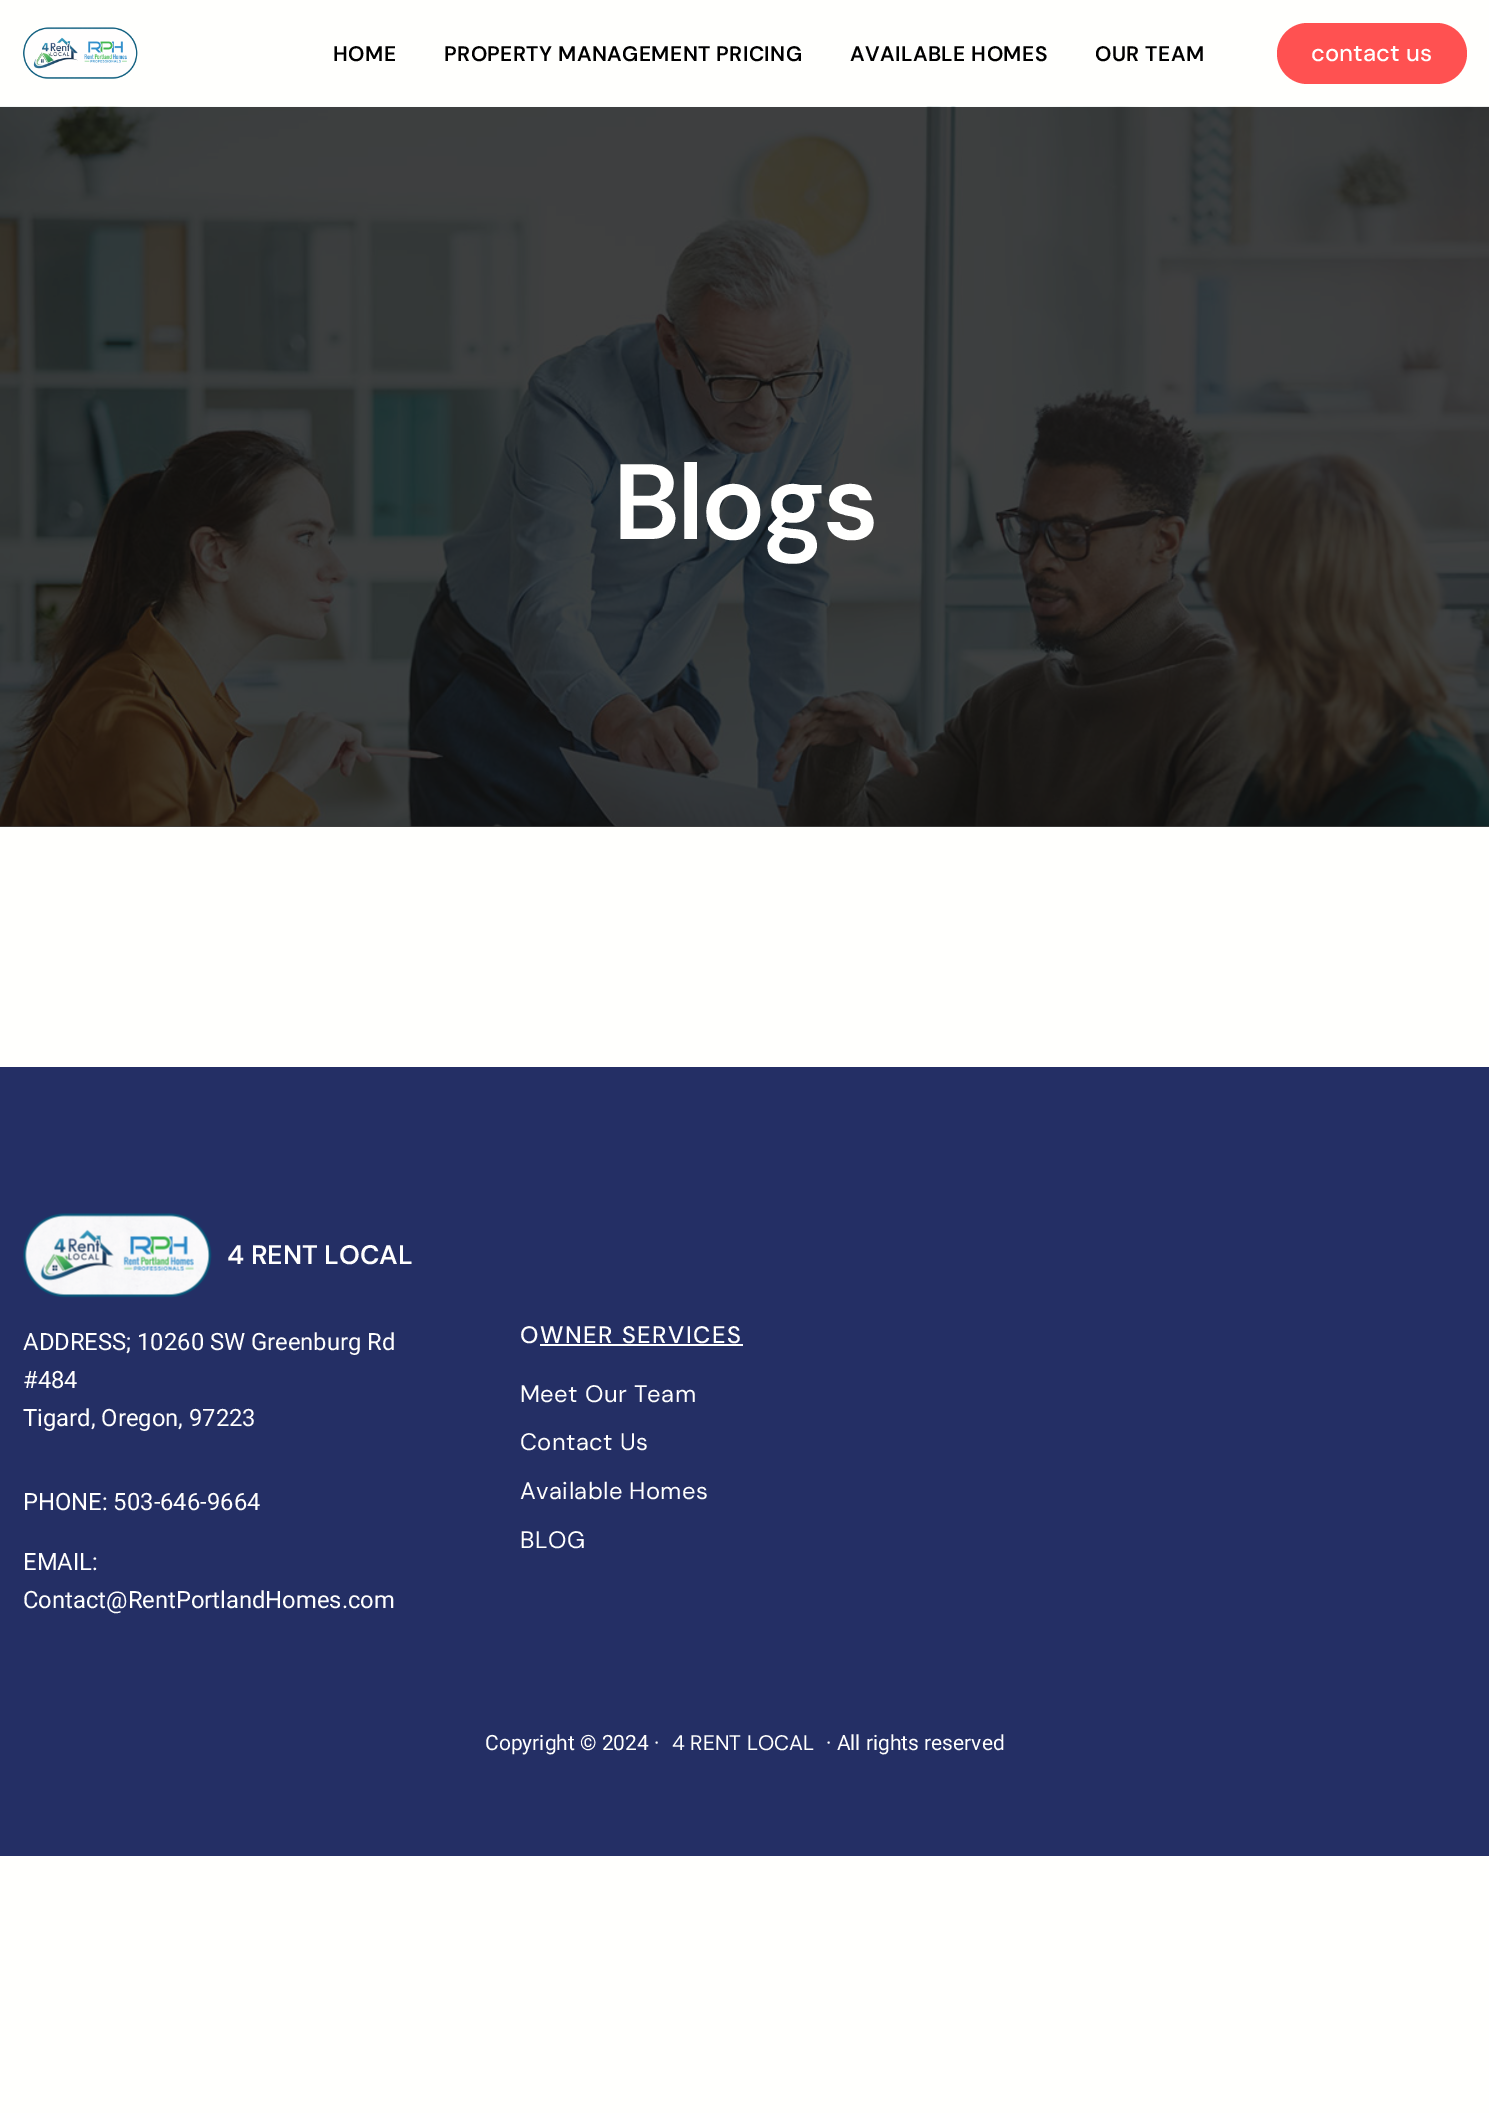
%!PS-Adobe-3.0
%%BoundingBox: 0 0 1489 2113
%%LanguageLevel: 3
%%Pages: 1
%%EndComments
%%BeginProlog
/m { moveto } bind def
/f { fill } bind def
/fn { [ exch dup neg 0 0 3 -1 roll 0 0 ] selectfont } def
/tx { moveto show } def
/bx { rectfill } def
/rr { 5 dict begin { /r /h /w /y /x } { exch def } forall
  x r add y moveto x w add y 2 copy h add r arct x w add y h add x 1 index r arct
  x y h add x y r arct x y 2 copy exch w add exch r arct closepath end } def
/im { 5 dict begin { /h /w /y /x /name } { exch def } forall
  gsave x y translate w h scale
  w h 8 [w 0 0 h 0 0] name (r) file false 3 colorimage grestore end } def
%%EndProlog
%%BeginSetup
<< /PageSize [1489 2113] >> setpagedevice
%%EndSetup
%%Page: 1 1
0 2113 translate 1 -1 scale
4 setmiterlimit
1 1 0.992 setrgbcolor
0 0 1489 2113 bx
0.255 0.255 0.251 setrgbcolor
0 826 1489 1 bx
(image0.raw) 23 27 115 52 im
/DMSans-SemiBold 21 fn
0 setgray
333 61 m 0.4 0 (HOME) ashow
444 61 m 0.4 0 (PROPERTY MANAGEMENT PRICING) ashow
850 61 m 0.4 0 (AVAILABLE HOMES) ashow
1095 61 m 0.4 0 (OUR TEAM) ashow
1 0.318 0.318 setrgbcolor
1277 23 190 61 30.5 rr f
/DMSans-Medium 23.8 fn
1 1 0.996 setrgbcolor
(contact us) 1311 61 tx
(image1.raw) 0 106 1489 721 im
/DMSans-SemiBold 107 fn
613 539 m -3 0 (Blogs) ashow
0.141 0.184 0.396 setrgbcolor
0 1067 1489 789 bx
(image2.raw) 23 1213 189 85 im
/DMSans-SemiBold 26.75 fn
1 1 0.996 setrgbcolor
(4 RENT LOCAL) 227 1264 tx
/Roboto-Regular 23.8 fn
(ADDRESS; 10260 SW Greenburg Rd) 23 1350 tx
(#484) 23 1388 tx
(Tigard, Oregon, 97223) 23 1426 tx
(PHONE: 503-646-9664) 23 1510 tx
(EMAIL:) 23 1570 tx
(Contact@RentPortlandHomes.com) 23 1608 tx
/DMSans-Medium 23.8 fn
520 1343 m 1.5 0 (OWNER SERVICES) ashow
1 setgray
540 1344 203 2 bx
/DMSans-Regular 23.8 fn
1 1 0.996 setrgbcolor
520 1402 m 0.4 0 (Meet Our Team) ashow
520 1450 m 0.4 0 (Contact Us) ashow
520 1499 m 0.4 0 (Available Homes) ashow
520 1548 m 0.4 0 (BLOG) ashow
/Roboto-Regular 21 fn
(Copyright © 2024 ·) 485 1750 tx
/DMSans-Regular 21 fn
(4 RENT LOCAL) 672 1750 tx
/Roboto-Regular 21 fn
(· All rights reserved) 826 1750 tx
showpage
%%EOF
